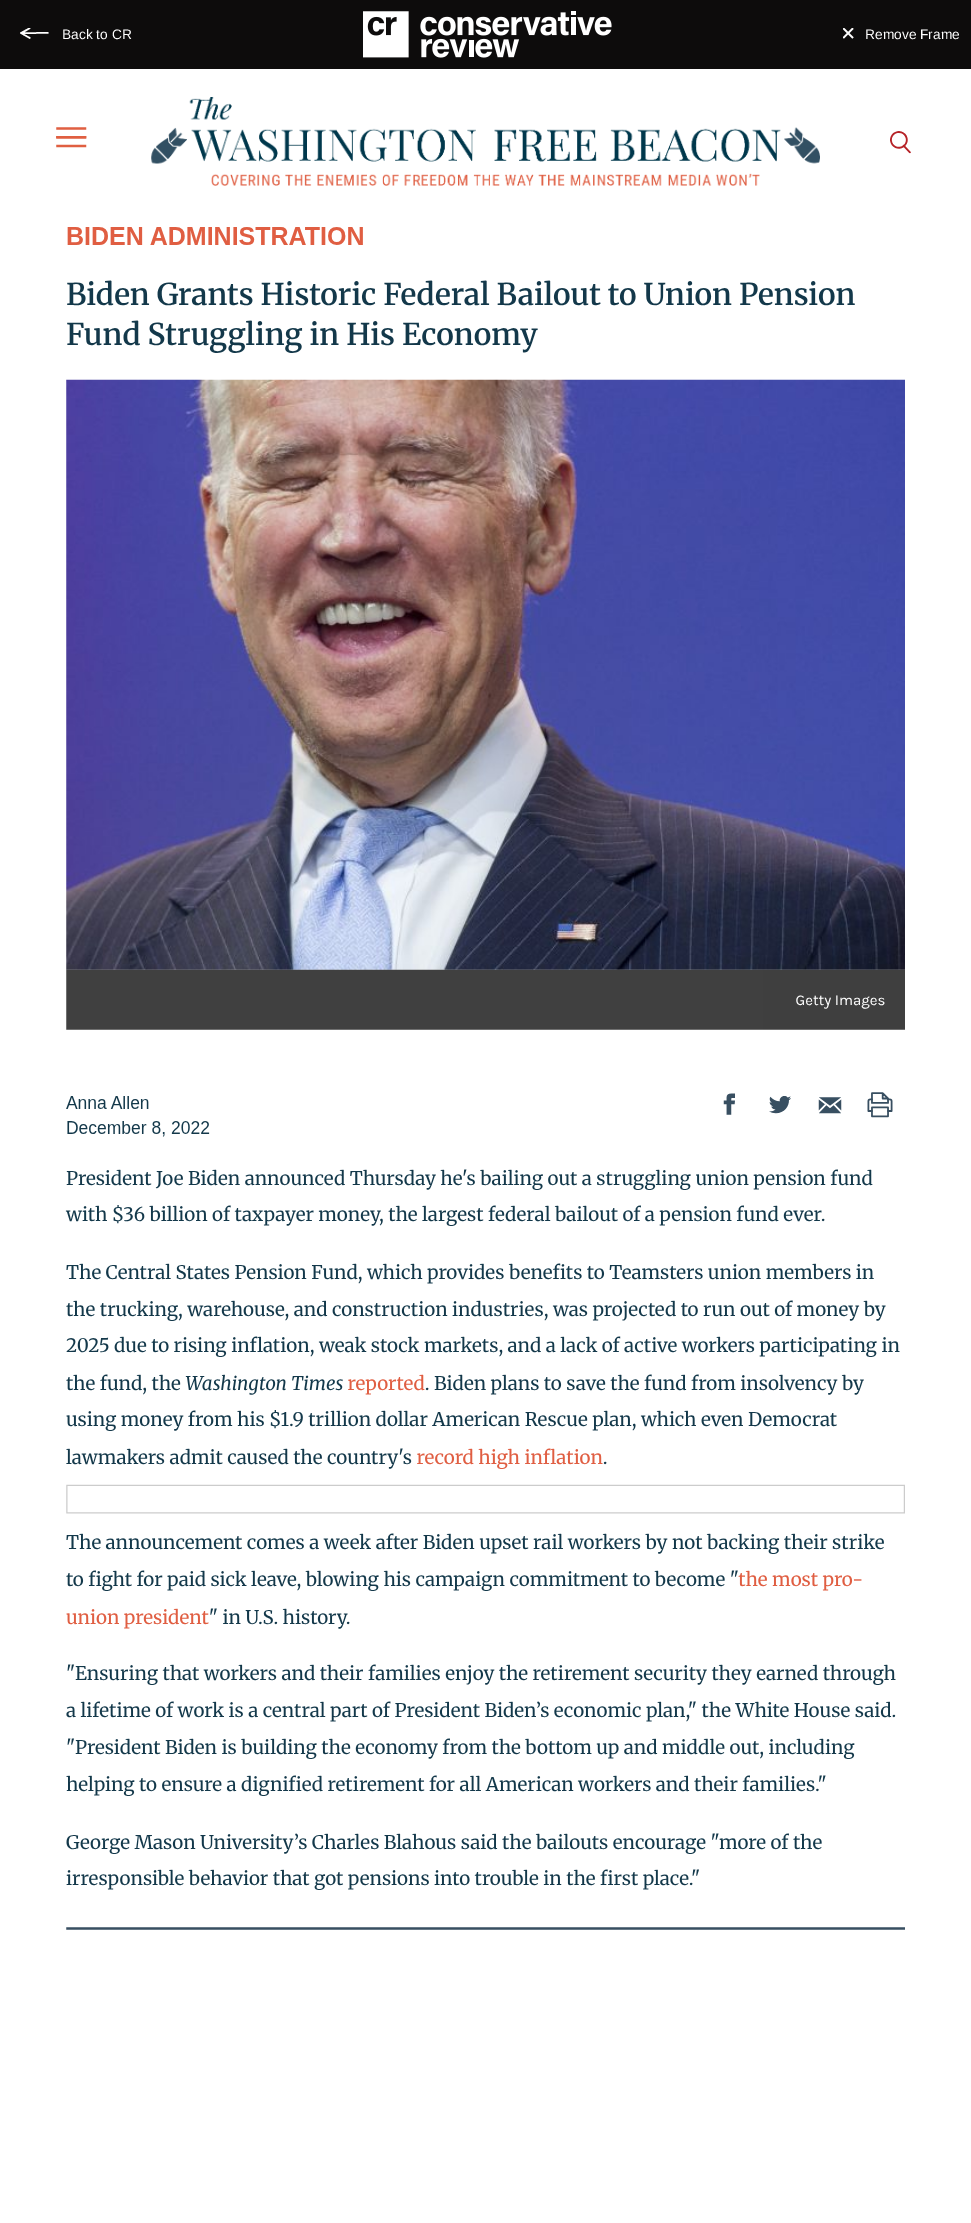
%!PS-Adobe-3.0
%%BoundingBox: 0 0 971 2223
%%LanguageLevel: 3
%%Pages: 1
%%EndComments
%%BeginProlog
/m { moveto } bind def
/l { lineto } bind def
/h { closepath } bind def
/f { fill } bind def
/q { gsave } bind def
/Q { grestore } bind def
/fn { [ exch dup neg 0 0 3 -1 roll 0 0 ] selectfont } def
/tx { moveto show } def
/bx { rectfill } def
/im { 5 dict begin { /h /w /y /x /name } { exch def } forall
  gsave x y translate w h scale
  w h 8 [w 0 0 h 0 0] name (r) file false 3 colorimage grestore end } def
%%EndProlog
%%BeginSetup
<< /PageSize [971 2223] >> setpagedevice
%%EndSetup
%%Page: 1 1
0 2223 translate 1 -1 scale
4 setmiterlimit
0.051 0.047 0.047 setrgbcolor
0 0 971 2223 bx
1 setgray
0 69 971 3 bx
q
20 28 29 11 rectclip
30 39 m 19.5 33 l 29.5 27.5 l 30.5 28.5 l 24 32.5 l 48.5 32 l 48.5 33.5 l 24 34 l 30.5 37.5 l h f
Q
/LiberationSans-Regular 13.75 fn
(Back to CR) 62 39 tx
(image0.raw) 363 11 249 47 im
(image1.raw) 843 28 11 11 im
(Remove Frame) 865 39 tx
(image2.raw) 0 72 971 2151 im
showpage
%%EOF
